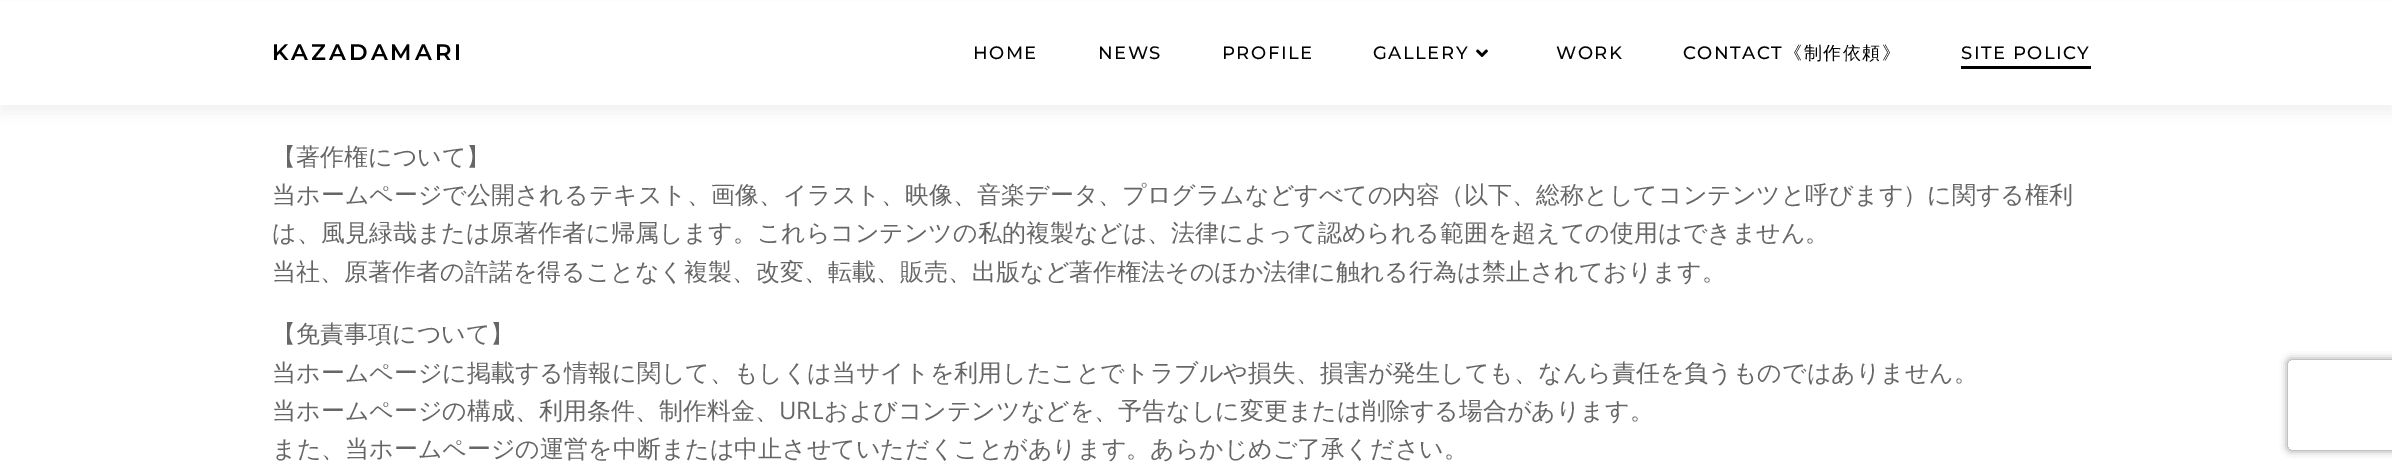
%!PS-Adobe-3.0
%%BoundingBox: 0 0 2392 471
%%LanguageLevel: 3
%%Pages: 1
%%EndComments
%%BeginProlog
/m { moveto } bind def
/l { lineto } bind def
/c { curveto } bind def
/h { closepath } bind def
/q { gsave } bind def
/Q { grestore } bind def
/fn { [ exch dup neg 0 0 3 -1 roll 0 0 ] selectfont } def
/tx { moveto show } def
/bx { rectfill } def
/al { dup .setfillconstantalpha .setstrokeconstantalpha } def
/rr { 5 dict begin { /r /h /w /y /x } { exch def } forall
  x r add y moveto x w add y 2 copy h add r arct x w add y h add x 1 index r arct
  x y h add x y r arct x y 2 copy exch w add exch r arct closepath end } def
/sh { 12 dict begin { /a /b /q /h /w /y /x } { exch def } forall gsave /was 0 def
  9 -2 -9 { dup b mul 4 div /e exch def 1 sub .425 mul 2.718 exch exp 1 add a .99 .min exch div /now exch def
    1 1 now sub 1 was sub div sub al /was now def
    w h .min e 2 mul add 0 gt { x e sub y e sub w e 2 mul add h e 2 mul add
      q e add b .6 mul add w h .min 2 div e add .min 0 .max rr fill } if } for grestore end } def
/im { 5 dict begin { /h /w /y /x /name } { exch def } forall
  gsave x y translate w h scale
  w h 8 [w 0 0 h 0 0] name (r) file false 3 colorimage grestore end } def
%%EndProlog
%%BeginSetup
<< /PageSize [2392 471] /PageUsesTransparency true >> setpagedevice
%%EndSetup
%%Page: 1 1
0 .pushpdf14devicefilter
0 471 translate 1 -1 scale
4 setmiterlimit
1 setgray
0 0 2392 471 bx
0 setgray
0 8 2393 105 0 7.5 0.05 sh
1 setgray
0 2 2392 103 bx
/Montserrat-SemiBold 22.5 fn
0 setgray
272 60 m 3 0 (KAZADAMARI) ashow
/Montserrat-Medium 18 fn
973 59 m 1.5 0 (HOME) ashow
1098 59 m 1.5 0 (NEWS) ashow
1222 59 m 1.5 0 (PROFILE) ashow
1373 59 m 1.5 0 (GALLERY) ashow
(image0.raw) 1476 49 12 8 im
1556 59 m 1.5 0 (WORK) ashow
1683 59 m 1.5 0 (CONTACT) ashow
/WenQuanYiZenHei-Medium 18 fn
1784 59 m 1.5 0 (《制作依頼》) ashow
/Montserrat-Medium 18 fn
1961 59 m 1.5 0 (SITE POLICY) ashow
1961 66 130 3 bx
/WenQuanYiZenHei-Medium 24 fn
0.4 setgray
(【著作権について】) 272 165 tx
(当ホームページで公開されるテキスト、画像、イラスト、映像、音楽データ、プログラムなどすべての内容（以下、総称としてコンテンツと呼びます）に関する権利) 272 203 tx
(は、風見緑哉または原著作者に帰属します。これらコンテンツの私的複製などは、法律によって認められる範囲を超えての使用はできません。) 272 241 tx
(当社、原著作者の許諾を得ることなく複製、改変、転載、販売、出版など著作権法そのほか法律に触れる行為は禁止されております。) 272 280 tx
(【免責事項について】) 272 342 tx
(当ホームページに掲載する情報に関して、もしくは当サイトを利用したことでトラブルや損失、損害が発生しても、なんら責任を負うものではありません。) 272 381 tx
(当ホームページの構成、利用条件、制作料金、) 272 419 tx
/OpenSans-Regular 24 fn
(URL) 779 419 tx
/WenQuanYiZenHei-Medium 24 fn
(およびコンテンツなどを、予告なしに変更または削除する場合があります。) 824 419 tx
(また、当ホームページの運営を中断または中止させていただくことがあります。あらかじめご了承ください。) 272 457 tx
q
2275 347 m 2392 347 l 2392 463 l 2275 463 l h 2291 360 m 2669 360 l 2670.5 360 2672 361.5 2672 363 c 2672 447 l 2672 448.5 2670.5 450 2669 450 c 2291 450 l 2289.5 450 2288 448.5 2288 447 c 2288 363 l 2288 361.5 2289.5 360 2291 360 c h eoclip newpath
0.502 setgray
2288 360 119 90 3 4 1 sh
Q
.poppdf14devicefilter showpage
%%EOF
